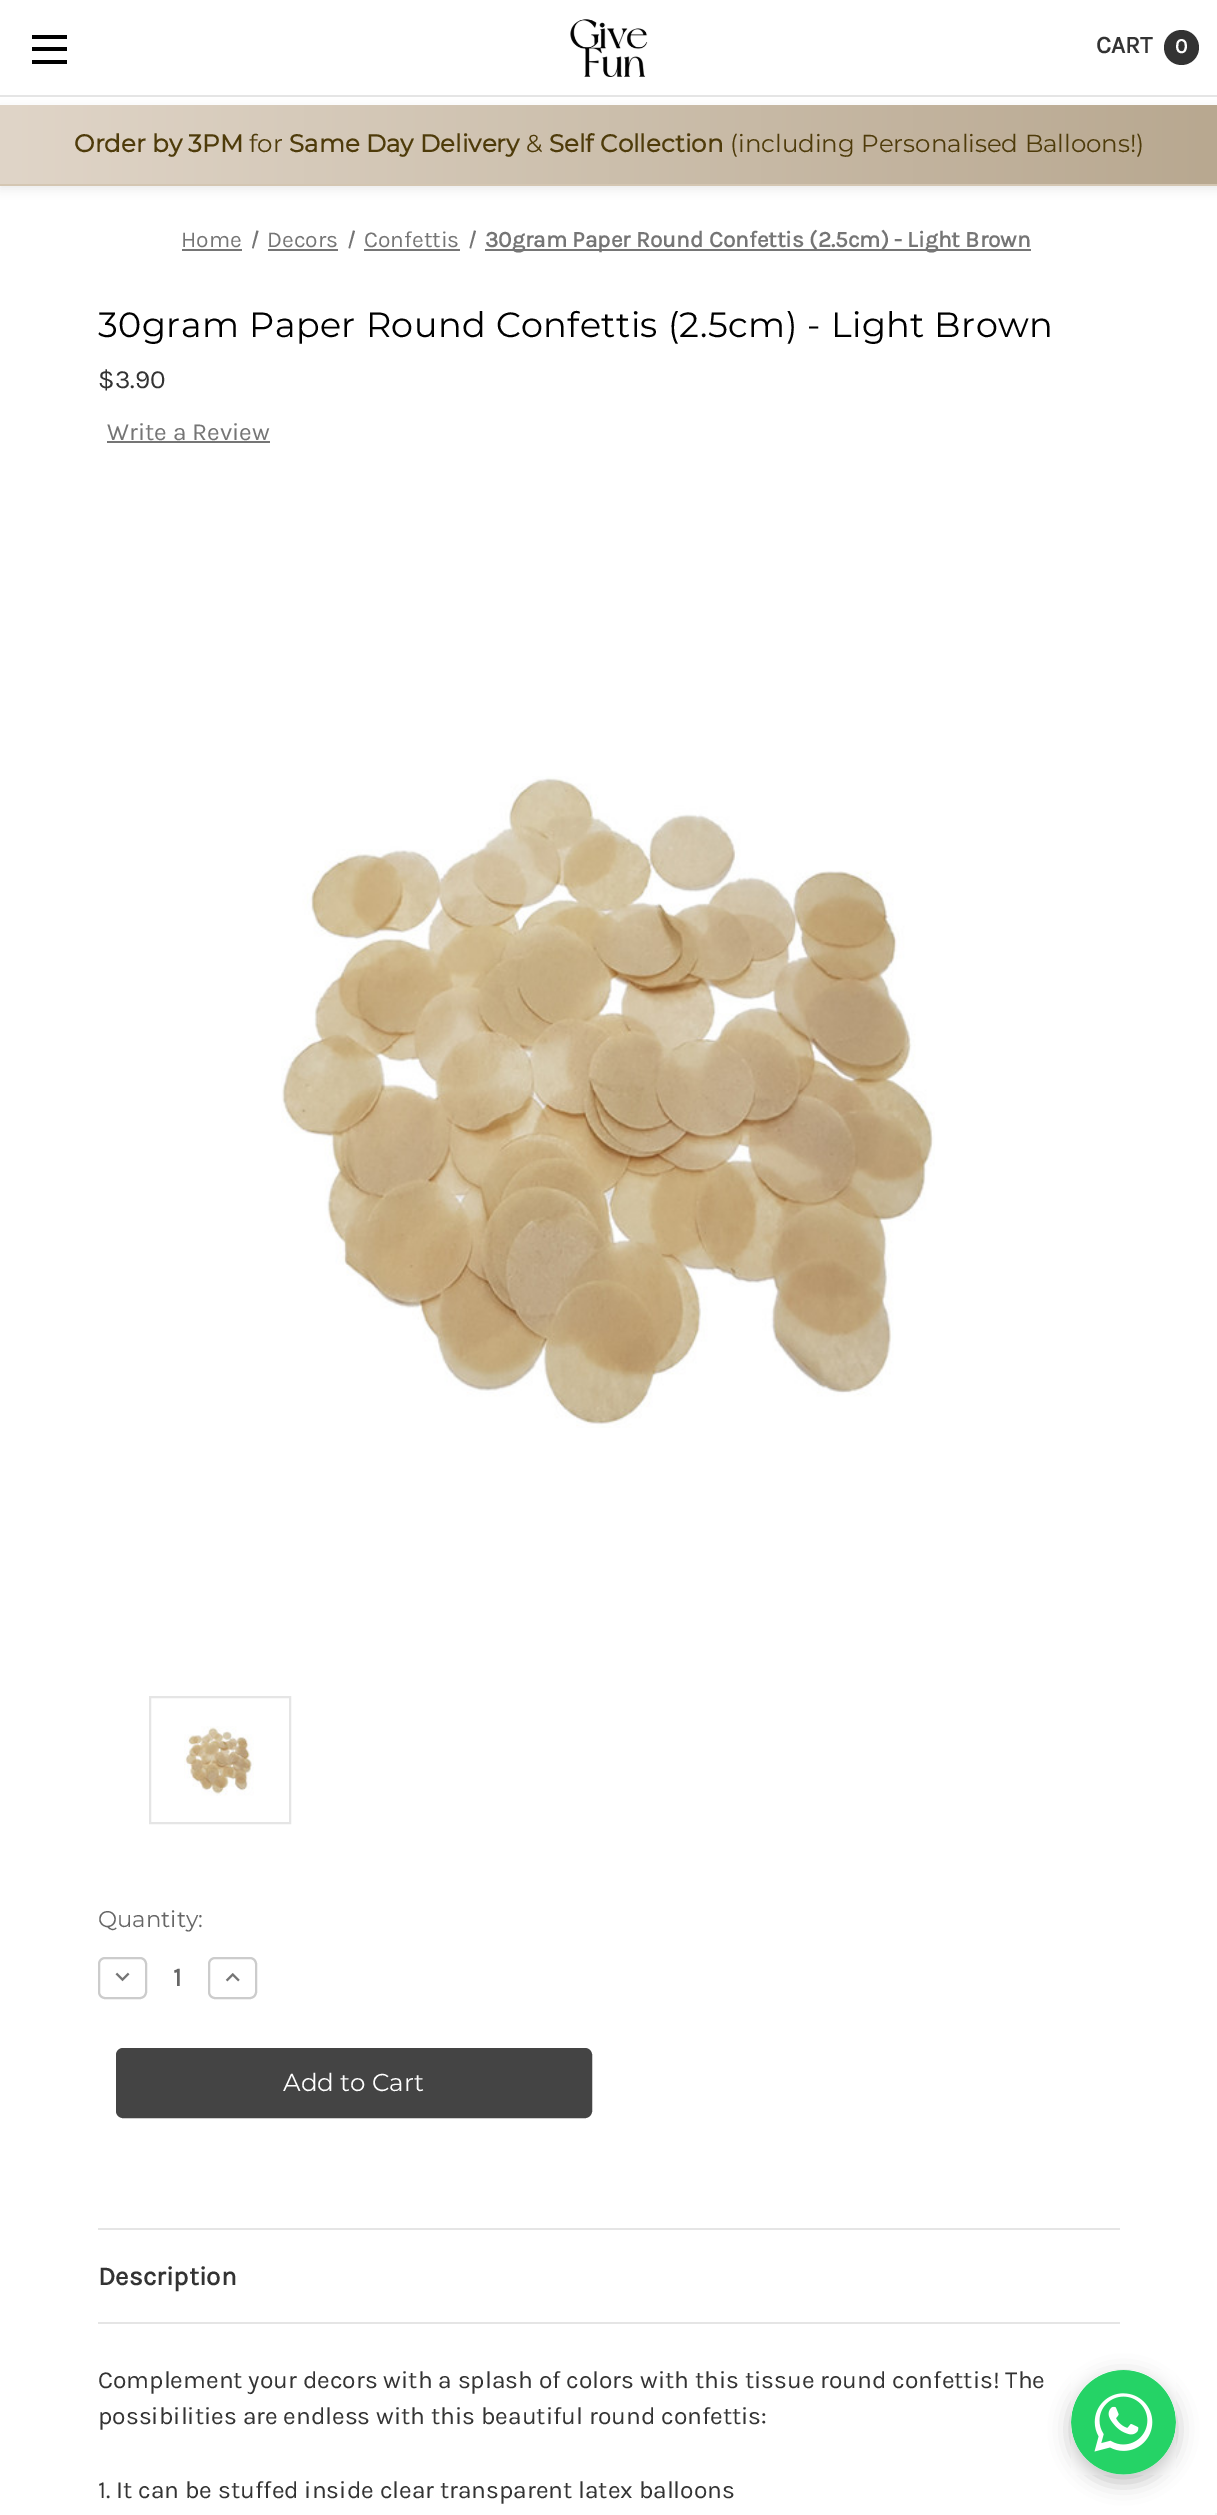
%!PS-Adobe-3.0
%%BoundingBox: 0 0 1217 2515
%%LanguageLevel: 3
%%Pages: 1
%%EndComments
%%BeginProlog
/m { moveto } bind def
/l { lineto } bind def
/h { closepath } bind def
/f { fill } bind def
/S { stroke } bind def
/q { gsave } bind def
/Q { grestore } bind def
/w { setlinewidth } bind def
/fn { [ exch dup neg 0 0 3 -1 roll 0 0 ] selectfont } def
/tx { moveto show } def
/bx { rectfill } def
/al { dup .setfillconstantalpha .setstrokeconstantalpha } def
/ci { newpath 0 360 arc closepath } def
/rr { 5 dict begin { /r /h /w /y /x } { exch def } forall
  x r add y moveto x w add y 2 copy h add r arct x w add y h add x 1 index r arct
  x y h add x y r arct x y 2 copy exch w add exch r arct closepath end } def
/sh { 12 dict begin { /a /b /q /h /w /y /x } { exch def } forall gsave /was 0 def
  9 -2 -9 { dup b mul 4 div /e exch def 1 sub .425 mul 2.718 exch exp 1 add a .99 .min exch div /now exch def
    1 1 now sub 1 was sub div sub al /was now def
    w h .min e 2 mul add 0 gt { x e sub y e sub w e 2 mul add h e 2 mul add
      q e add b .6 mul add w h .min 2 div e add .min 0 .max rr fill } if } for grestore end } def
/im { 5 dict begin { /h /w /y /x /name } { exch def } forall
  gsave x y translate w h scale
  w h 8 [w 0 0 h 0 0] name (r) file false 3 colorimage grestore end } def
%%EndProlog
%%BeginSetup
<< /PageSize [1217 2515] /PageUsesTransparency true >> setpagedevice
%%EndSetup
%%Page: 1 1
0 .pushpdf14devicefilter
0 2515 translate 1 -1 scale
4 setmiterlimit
1 setgray
0 0 1217 2515 bx
0 setgray
0 109 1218 80 0 5 0.08 sh
0.898 setgray
0 95 1217 2 bx
0 setgray
32 47 35 4 bx
32 35 35 4 bx
32 60 35 4 bx
(image0.raw) 570 19 78 58 im
/Karla-Bold 24.5 fn
0.2 setgray
(CART) 1096 53 tx
1181.5 47.5 17.5 ci f
/Karla-Bold 21 fn
1 setgray
(0) 1175 53 tx
q 0 105 m 1217 105 l 1217 184 l 0 184 l h clip newpath
<< /ShadingType 2 /ColorSpace /DeviceRGB /Coords [0 144 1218 144] /Extend [true true] /Function << /FunctionType 2 /Domain [0 1] /C0 [0.878 0.835 0.784] /C1 [0.722 0.659 0.565] /N 1 >> >> shfill Q
0.831 0.776 0.698 setrgbcolor
0 184 1217 2 bx
/Montserrat-Bold 24.5 fn
0.306 0.231 0.039 setrgbcolor
(Order by 3PM) 74 152 tx
/Montserrat-Thin 24.5 fn
(for) 249 152 tx
/Montserrat-Bold 24.5 fn
(Same Day Delivery) 289 152 tx
/Montserrat-Thin 24.5 fn
(&) 526 152 tx
/Montserrat-Bold 24.5 fn
(Self Collection) 549 152 tx
/Montserrat-Thin 24.5 fn
(\(including Personalised Balloons!\)) 730 152 tx
/Karla-Regular 22.75 fn
0.459 setgray
(Home) 181 247 tx
182 249 60 2 bx
256.5 230.5 m 258.5 231 l 253.5 248.5 l 252 248 l h f
(Decors) 267 247 tx
268 249 70 2 bx
353 230.5 m 355 231 l 350 248.5 l 348.5 248 l h f
(Confettis) 364 247 tx
364 249 96 2 bx
474 230.5 m 476 231 l 471 248.5 l 469.5 248 l h f
485 249 546 2 bx
/Karla-Bold 22.75 fn
(30gram Paper Round Confettis \(2.5cm\) - Light Brown) 485 247 tx
/Montserrat-Thin 35 fn
0 setgray
98 337 m 0.45 0 (30gram Paper Round Confettis \(2.5cm\) - Light Brown) ashow
/Karla-Regular 26.25 fn
0.2 setgray
($3.90) 98 388 tx
/Karla-Regular 24.5 fn
0.459 setgray
(Write a Review) 107 440 tx
107 441 163 2 bx
(image1.raw) 281 776 654 652 im
0.898 setgray
2 w
150 1697 140 126 rectstroke
(image2.raw) 184 1726 70 70 im
/Montserrat-Thin 22.75 fn
0.4 setgray
(Quantity:) 98 1927 tx
0.8 setgray
99 1958 47 40 6 rr S
(image3.raw) 115 1972 15 10 im
/Karla-Bold 26.25 fn
0.4 setgray
(1) 173 1986 tx
0.8 setgray
209 1958 47 40 6 rr S
(image4.raw) 225 1973 15 9 im
0.267 setgray
117 2049 474 68 6 rr q f Q
S
/Montserrat-Thin 24.5 fn
1 setgray
(Add to Cart) 283 2091 tx
0.898 setgray
98 2322 1022 2 bx
98 2228 1022 2 bx
/Karla-Bold 26.25 fn
0.2 setgray
(Description) 98 2285 tx
/Karla-Regular 24.5 fn
(Complement your decors with a splash of colors with this tissue round confettis! The) 98 2388 tx
(possibilities are endless with this beautiful round confettis:) 98 2424 tx
(1. It can be stuffed inside clear transparent latex balloons) 98 2498 tx
0 setgray
1071 2377 105 105 52.5 10.5 0.25 sh
(image5.raw) 1071 2370 105 105 im
0.961 setgray
1215 2513 2 2 bx
.poppdf14devicefilter showpage
%%EOF
